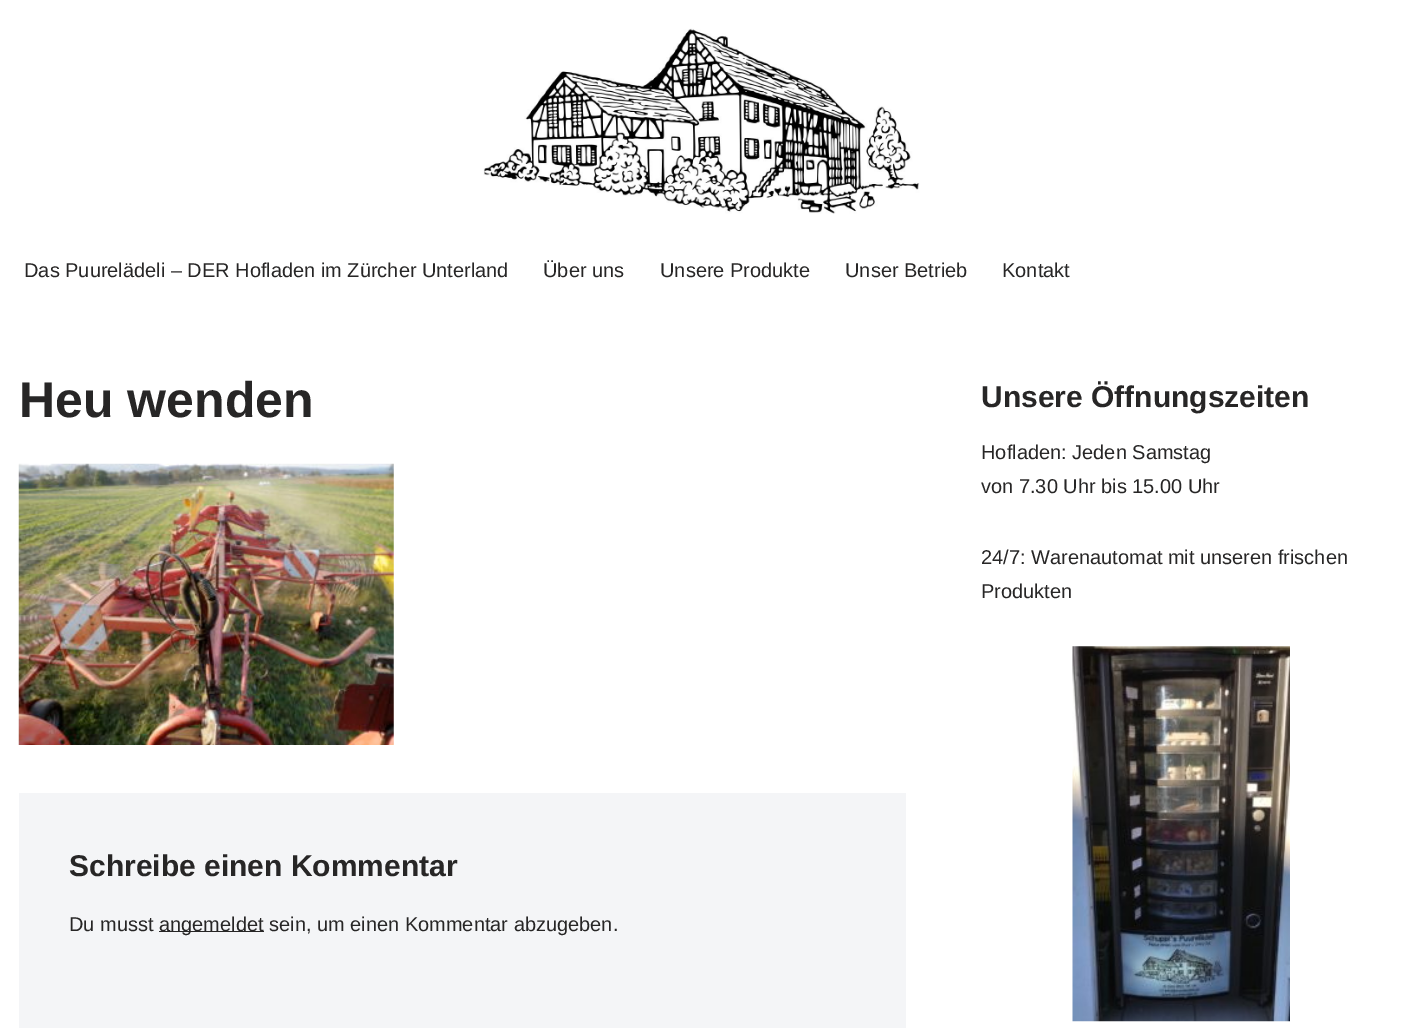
%!PS-Adobe-3.0
%%BoundingBox: 0 0 1401 1028
%%LanguageLevel: 3
%%Pages: 1
%%EndComments
%%BeginProlog
/fn { [ exch dup neg 0 0 3 -1 roll 0 0 ] selectfont } def
/tx { moveto show } def
/bx { rectfill } def
/im { 5 dict begin { /h /w /y /x /name } { exch def } forall
  gsave x y translate w h scale
  w h 8 [w 0 0 h 0 0] name (r) file false 3 colorimage grestore end } def
%%EndProlog
%%BeginSetup
<< /PageSize [1401 1028] >> setpagedevice
%%EndSetup
%%Page: 1 1
0 1028 translate 1 -1 scale
4 setmiterlimit
1 setgray
0 0 1401 1028 bx
(image0.raw) 483 28 437 186 im
/LiberationSans-Regular 20 fn
0.153 0.149 0.149 setrgbcolor
(Das Puurelädeli – DER Hofladen im Zürcher Unterland) 24 277 tx
(Über uns) 543 277 tx
(Unsere Produkte) 660 277 tx
(Unser Betrieb) 845 277 tx
(Kontakt) 1002 277 tx
/LiberationSans-Bold 50 fn
(Heu wenden) 19 417 tx
(image1.raw) 18 463 376 282 im
0.957 0.961 0.969 setrgbcolor
19 793 887 235 bx
/LiberationSans-Bold 30 fn
0.153 0.149 0.149 setrgbcolor
(Schreibe einen Kommentar) 69 876 tx
/LiberationSans-Regular 20 fn
(Du musst) 69 931 tx
159 931 105 1 bx
(angemeldet sein, um einen Kommentar abzugeben.) 159 931 tx
/LiberationSans-Bold 30 fn
(Unsere Öffnungszeiten) 981 407 tx
/LiberationSans-Regular 20 fn
(Hofladen: Jeden Samstag) 981 459 tx
(von 7.30 Uhr bis 15.00 Uhr) 981 493 tx
(24/7: Warenautomat mit unseren frischen) 981 564 tx
(Produkten) 981 598 tx
(image2.raw) 1072 646 218 376 im
showpage
%%EOF
